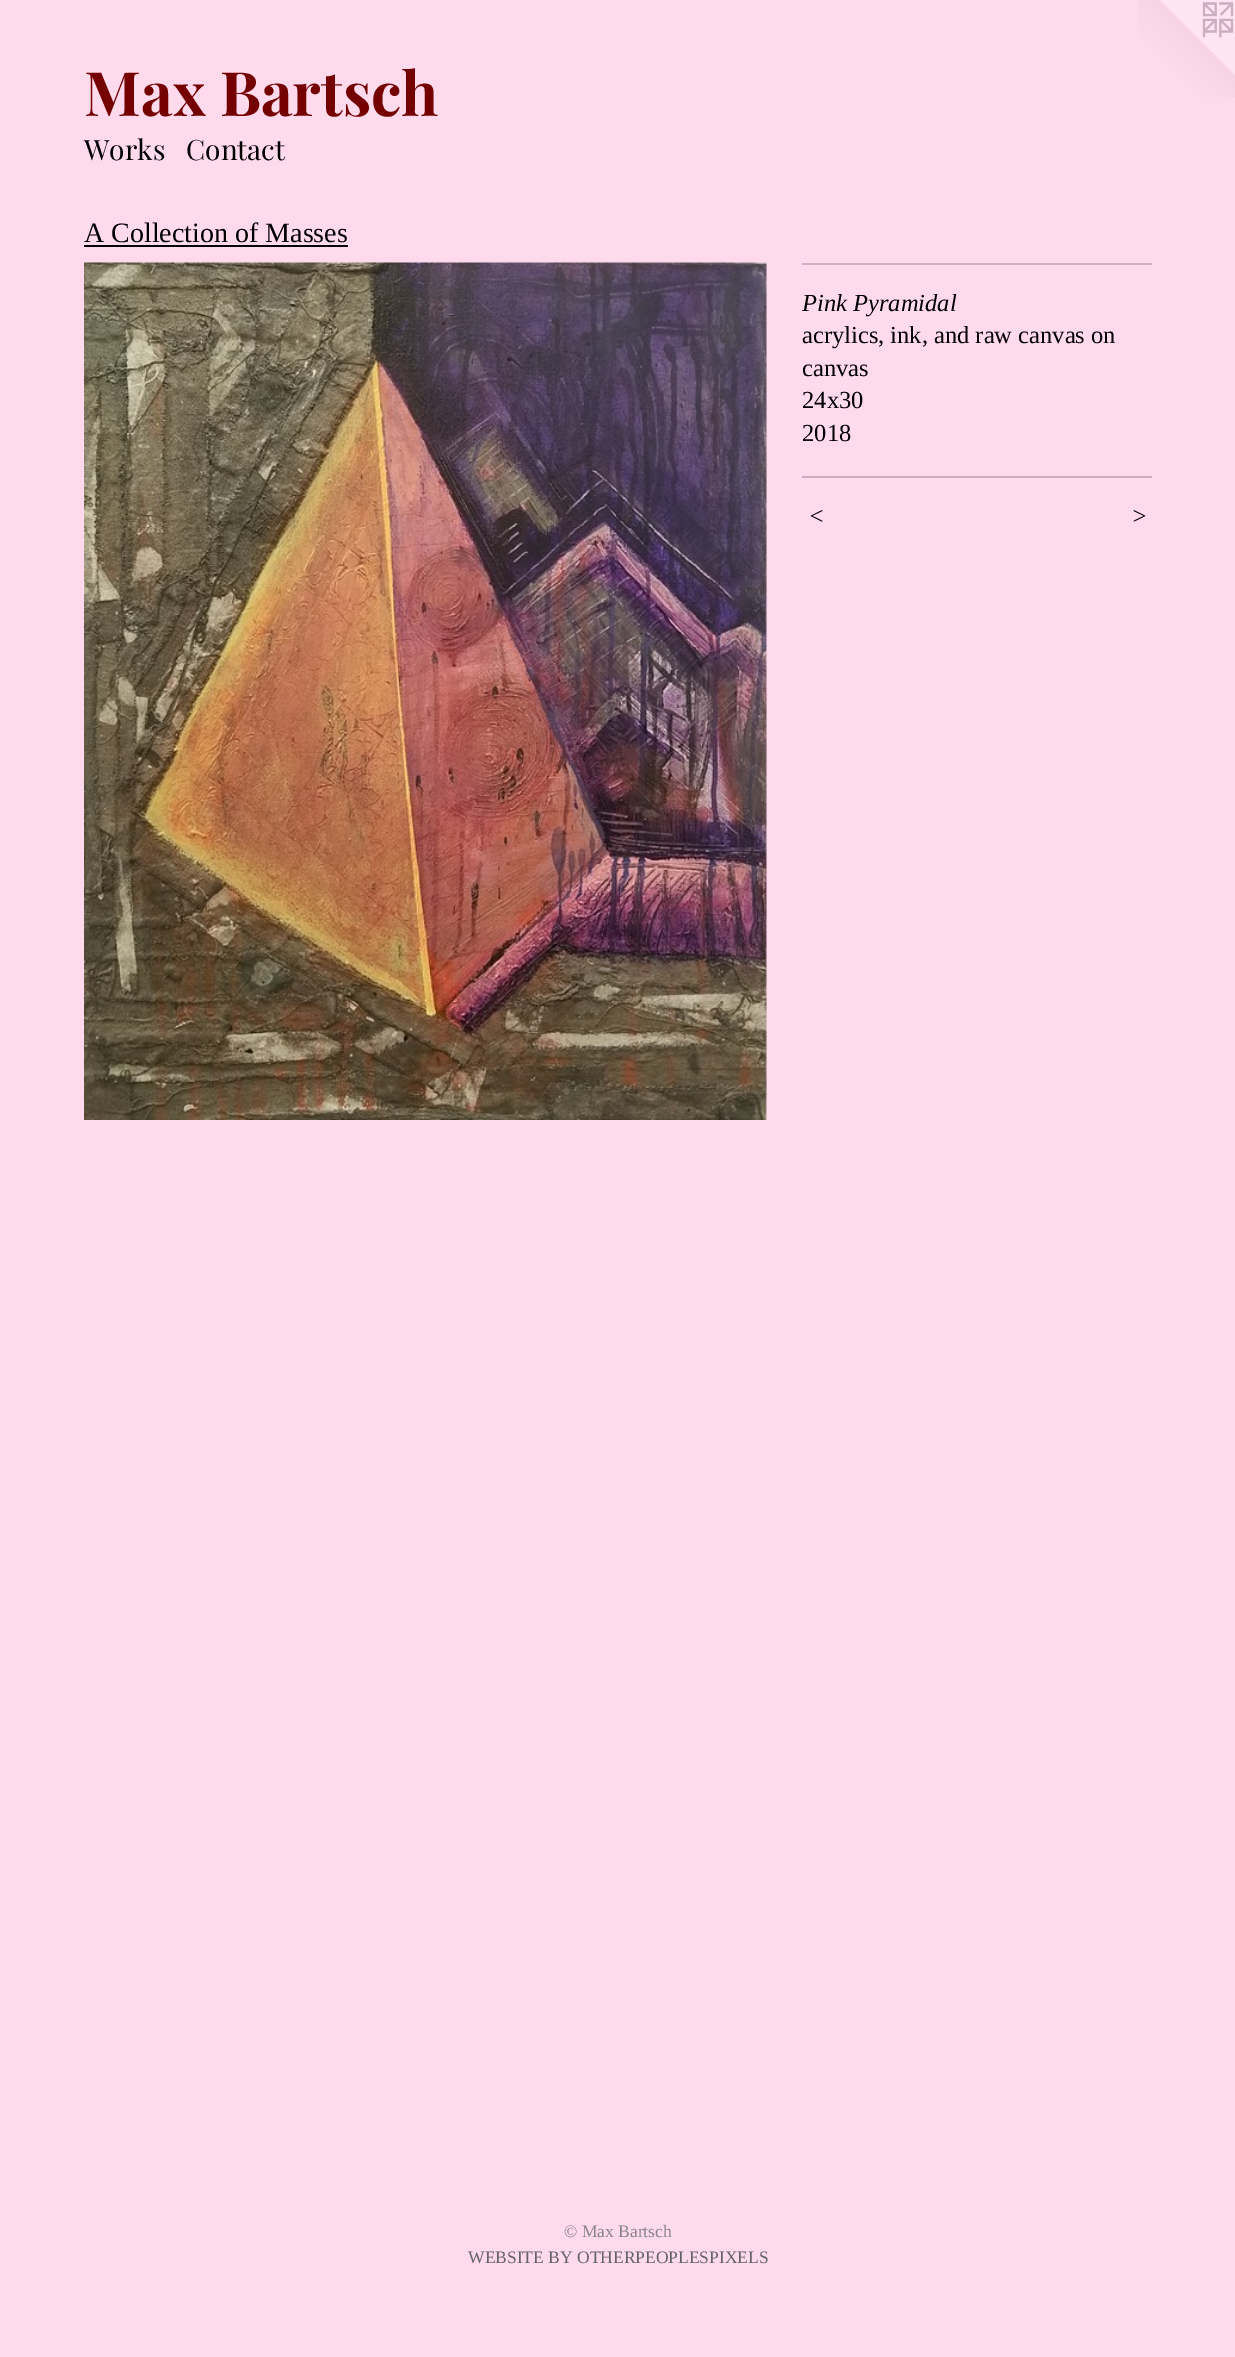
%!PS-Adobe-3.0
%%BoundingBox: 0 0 1235 2357
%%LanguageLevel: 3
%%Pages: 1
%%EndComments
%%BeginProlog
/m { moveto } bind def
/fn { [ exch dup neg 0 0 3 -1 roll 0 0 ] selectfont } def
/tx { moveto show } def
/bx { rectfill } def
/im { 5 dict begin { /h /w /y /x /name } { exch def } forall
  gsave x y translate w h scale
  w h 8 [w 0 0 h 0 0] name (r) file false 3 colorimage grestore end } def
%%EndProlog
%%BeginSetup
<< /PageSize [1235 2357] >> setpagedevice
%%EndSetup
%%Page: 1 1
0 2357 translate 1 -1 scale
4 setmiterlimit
1 0.855 0.929 setrgbcolor
0 0 1235 2357 bx
/PlayfairDisplay-Bold 61.25 fn
0.459 0 0 setrgbcolor
(Max Bartsch) 84 116 tx
(image0.raw) 1138 0 97 97 im
/PlayfairDisplay-Regular 28 fn
0 setgray
(Works) 84 160 tx
(Contact) 186 160 tx
/LiberationSerif-Regular 28 fn
(A Collection of Masses) 84 242 tx
84 245 264 2 bx
(image1.raw) 84 262 683 858 im
0.8 0.682 0.745 setrgbcolor
802 263 350 2 bx
/LiberationSerif-Italic 24.5 fn
0 setgray
(Pink Pyramidal) 802 311 tx
/LiberationSerif-Regular 24.5 fn
(acrylics, ink, and raw canvas on) 802 343 tx
(canvas) 802 376 tx
(24x30) 802 408 tx
(2018) 802 441 tx
0.8 0.682 0.745 setrgbcolor
802 476 350 2 bx
/LiberationSerif-Italic 24.5 fn
0 setgray
808 524 m 2 0 (<) ashow
1131 524 m 2 0 (>) ashow
/LiberationSerif-Regular 17.5 fn
0.522 setgray
(© Max Bartsch) 564 2237 tx
0.388 setgray
(WEBSITE BY OTHERPEOPLESPIXELS) 468 2263 tx
showpage
%%EOF
